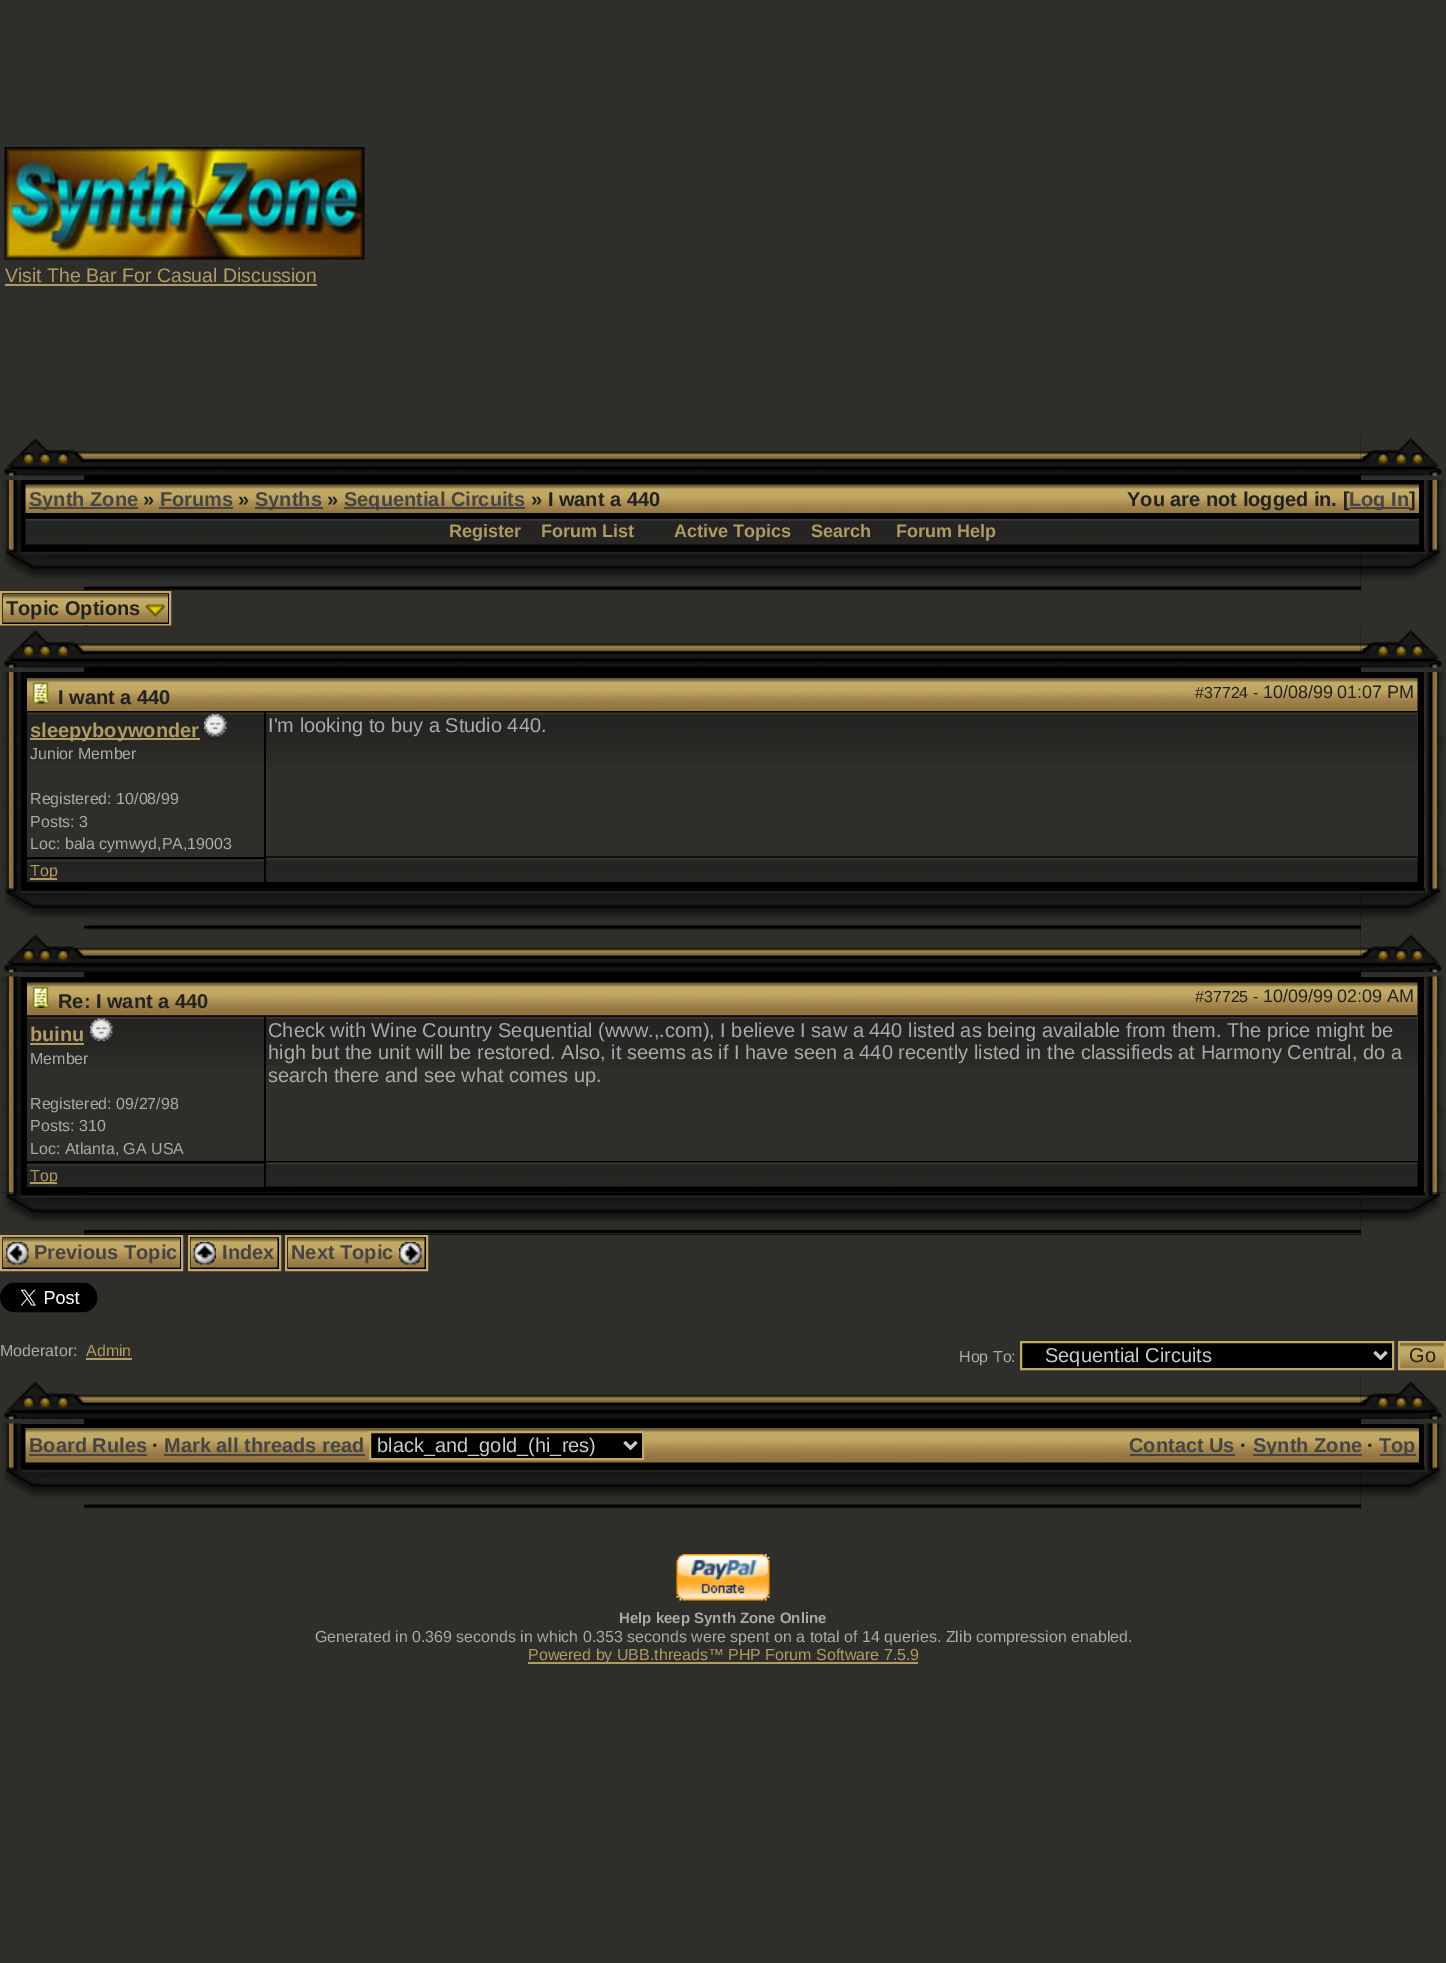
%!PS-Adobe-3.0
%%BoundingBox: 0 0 1446 1963
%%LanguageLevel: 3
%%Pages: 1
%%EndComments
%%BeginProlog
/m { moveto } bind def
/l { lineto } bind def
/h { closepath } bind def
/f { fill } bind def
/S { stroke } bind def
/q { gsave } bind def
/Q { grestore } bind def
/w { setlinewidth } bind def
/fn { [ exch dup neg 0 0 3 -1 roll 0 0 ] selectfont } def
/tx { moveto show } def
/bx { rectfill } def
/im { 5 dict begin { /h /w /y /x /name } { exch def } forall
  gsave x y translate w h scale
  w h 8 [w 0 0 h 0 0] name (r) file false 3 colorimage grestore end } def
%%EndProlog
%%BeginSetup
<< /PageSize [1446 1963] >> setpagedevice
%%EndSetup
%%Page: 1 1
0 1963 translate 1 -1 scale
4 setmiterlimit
0.18 0.184 0.169 setrgbcolor
0 0 1446 1963 bx
(image0.raw) 4 147 361 113 im
/LiberationSans-Regular 19.5 fn
0.686 0.608 0.388 setrgbcolor
(Visit The Bar For Casual Discussion) 5 282 tx
5 284 312 2 bx
(image1.raw) 4 453 17 23 im
(image2.raw) 21 438 63 38 im
0 setgray
84 434 1277 46 bx
(image3.raw) 84 434 1277 42 im
(image4.raw) 1360 434 65 42 im
(image5.raw) 1425 453 17 23 im
(image6.raw) 0 480 21 69 im
(image7.raw) 8 483 10 15 im
21 480 1403 69 bx
0.173 0.161 0.122 setrgbcolor
1424 480 1 69 bx
(image8.raw) 25 484 1394 29 im
0.267 setgray
29 507 109 2 bx
/LiberationSans-Bold 20 fn
(Synth Zone) 29 506 tx
0.133 setgray
(») 143 506 tx
0.267 setgray
(Forums) 160 506 tx
159 507 74 2 bx
0.133 setgray
(») 238 506 tx
0.267 setgray
255 507 68 2 bx
(Synths) 255 506 tx
0.133 setgray
(») 327 506 tx
0.267 setgray
344 507 181 2 bx
(Sequential Circuits) 344 506 tx
0.133 setgray
(» I want a 440) 531 506 tx
(You are not logged in. [) 1127 506 tx
0.267 setgray
1350 507 60 2 bx
(Log In) 1349 506 tx
0.133 setgray
(]) 1409 506 tx
(image9.raw) 25 518 1394 27 im
/LiberationSans-Bold 18 fn
0.686 0.608 0.388 setrgbcolor
(Register) 449 537 tx
(Forum List) 541 537 tx
(Active Topics) 674 537 tx
(Search) 811 537 tx
(Forum Help) 896 537 tx
(image10.raw) 1425 480 21 69 im
(image11.raw) 1436 483 2 15 im
(image12.raw) 4 549 17 23 im
(image13.raw) 21 549 63 30 im
0 setgray
1360 549 1 42 bx
(image14.raw) 84 549 1277 42 im
(image15.raw) 84 549 5 38 im
(image16.raw) 1360 549 65 38 im
(image17.raw) 1425 549 17 22 im
1 592 m 170 592 l 170 625 l 1 625 l h q f Q
0.757 0.659 0.392 setrgbcolor
2 w
S
(image18.raw) 3 594 165 29 im
/LiberationSans-Bold 20 fn
0.133 setgray
(Topic Options) 6 615 tx
(image19.raw) 145 604 20 13 im
(image20.raw) 0 625 21 43 im
(image21.raw) 21 625 63 43 im
0 setgray
84 626 1277 46 bx
(image22.raw) 84 625 1277 43 im
(image23.raw) 84 625 5 1 im
(image4.raw) 1360 626 65 42 im
(image5.raw) 1425 645 17 23 im
(image24.raw) 0 672 21 216 im
(image25.raw) 8 675 2 15 im
21 672 1403 216 bx
0.173 0.161 0.122 setrgbcolor
1424 672 1 216 bx
(image26.raw) 27 678 1391 33 im
(image27.raw) 32 682 18 22 im
0.133 setgray
(I want a 440) 58 704 tx
/LiberationSans-Regular 16 fn
(#37724 -) 1195 698 tx
/LiberationSans-Regular 18 fn
(10/08/99) 1263 698 tx
(01:07 PM) 1337 698 tx
0.176 0.184 0.169 setrgbcolor
27 762 237 95 bx
(image28.raw) 27 711 237 51 im
0.686 0.608 0.388 setrgbcolor
30 738 170 2 bx
/LiberationSans-Bold 20 fn
(sleepyboywonder) 30 737 tx
(image29.raw) 204 714 23 23 im
/LiberationSans-Regular 16 fn
0.667 setgray
(Junior Member) 30 759 tx
(Registered: 10/08/99) 30 804 tx
(Posts: 3) 30 827 tx
(Loc: bala cymwyd,PA,19003) 30 849 tx
0.176 0.184 0.169 setrgbcolor
266 711 1152 146 bx
(image30.raw) 266 711 1152 51 im
/LiberationSans-Regular 20 fn
0.667 setgray
(I'm looking to buy a Studio 440.) 268 732 tx
(image31.raw) 27 859 237 23 im
0.686 0.608 0.388 setrgbcolor
30 878 27 2 bx
/LiberationSans-Regular 16 fn
(Top) 30 876 tx
0.02 setgray
1417 857 1 25 bx
(image32.raw) 264 856 1154 26 im
0 setgray
264 857 2 25 bx
(image33.raw) 1425 672 21 216 im
(image11.raw) 1436 675 2 15 im
(image12.raw) 4 888 17 23 im
(image13.raw) 21 888 63 30 im
1360 888 1 42 bx
(image14.raw) 84 888 1277 42 im
(image15.raw) 84 888 5 38 im
(image16.raw) 1360 888 65 38 im
(image17.raw) 1425 888 17 22 im
(image34.raw) 4 949 17 23 im
(image35.raw) 21 934 63 38 im
84 930 1277 47 bx
(image36.raw) 84 930 1277 42 im
(image37.raw) 1360 930 65 42 im
(image38.raw) 1425 949 17 23 im
(image39.raw) 0 976 21 217 im
(image40.raw) 7 980 3 14 im
21 977 1403 216 bx
0.173 0.161 0.122 setrgbcolor
1424 977 2 216 bx
(image41.raw) 27 982 1391 34 im
(image42.raw) 32 986 18 22 im
/LiberationSans-Bold 20 fn
0.133 setgray
(Re: I want a 440) 58 1008 tx
/LiberationSans-Regular 16 fn
(#37725 -) 1195 1002 tx
/LiberationSans-Regular 18 fn
(10/09/99) 1263 1002 tx
(02:09 AM) 1337 1002 tx
0.176 0.184 0.169 setrgbcolor
27 1066 237 95 bx
(image43.raw) 27 1015 237 51 im
/LiberationSans-Bold 20 fn
0.686 0.608 0.388 setrgbcolor
(buinu) 30 1041 tx
30 1043 54 2 bx
(image44.raw) 90 1018 23 23 im
/LiberationSans-Regular 16 fn
0.667 setgray
(Member) 30 1064 tx
(Registered: 09/27/98) 30 1109 tx
(Posts: 310) 30 1131 tx
(Loc: Atlanta, GA USA) 30 1154 tx
0.176 0.184 0.169 setrgbcolor
266 1016 1152 145 bx
(image45.raw) 264 1015 1154 51 im
0 setgray
264 1016 2 50 bx
/LiberationSans-Regular 20 fn
0.667 setgray
(Check with Wine Country Sequential \(www.,.com\), I believe I saw a 440 listed as being available from them. The price might be) 268 1037 tx
(high but the unit will be restored. Also, it seems as if I have seen a 440 recently listed in the classifieds at Harmony Central, do a) 268 1059 tx
q
269 1019 1146 90 rectclip
(search there and see what comes up.) 268 1082 tx
Q
0.176 0.184 0.169 setrgbcolor
27 1186 237 1 bx
(image46.raw) 27 1163 237 24 im
0.686 0.608 0.388 setrgbcolor
30 1182 27 2 bx
/LiberationSans-Regular 16 fn
(Top) 30 1181 tx
0.02 setgray
266 1161 1152 26 bx
(image47.raw) 266 1161 1152 26 im
(image48.raw) 1425 976 21 217 im
(image49.raw) 1436 980 3 14 im
(image50.raw) 0 1192 21 24 im
(image51.raw) 21 1193 63 30 im
0 setgray
84 1193 1277 42 bx
(image52.raw) 84 1192 1277 43 im
(image53.raw) 84 1192 4 38 im
(image54.raw) 1360 1192 65 38 im
(image55.raw) 1425 1192 21 23 im
1 1236 m 182 1236 l 182 1270 l 1 1270 l h q f Q
0.757 0.659 0.392 setrgbcolor
S
(image56.raw) 3 1237 177 31 im
(image57.raw) 6 1242 23 23 im
/LiberationSans-Bold 20 fn
0.267 setgray
(Previous Topic) 34 1259 tx
0 setgray
189 1236 m 280 1236 l 280 1270 l 189 1270 l h q f Q
0.757 0.659 0.392 setrgbcolor
S
(image58.raw) 190 1237 88 31 im
(image59.raw) 193 1242 23 23 im
0.267 setgray
(Index) 222 1259 tx
0 setgray
286 1236 m 427 1236 l 427 1270 l 286 1270 l h q f Q
0.757 0.659 0.392 setrgbcolor
S
(image60.raw) 288 1237 137 31 im
0.267 setgray
(Next Topic) 291 1259 tx
(image61.raw) 399 1242 23 23 im
(image62.raw) 0 1282 98 31 im
/LiberationSans-Regular 16 fn
0.667 setgray
(Moderator:) 0 1356 tx
0.686 0.608 0.388 setrgbcolor
(Admin) 86 1356 tx
86 1358 46 2 bx
0.667 setgray
(Hop To:) 959 1362 tx
0 setgray
1021 1342 m 1393 1342 l 1393 1369 l 1021 1369 l h q f Q
0.757 0.659 0.392 setrgbcolor
S
0.8 setgray
3 w
1374.5 1352 m 1380.5 1358 l 1386.5 1352 l S
/LiberationSans-Regular 20 fn
(Sequential Circuits) 1045 1362 tx
(image63.raw) 1400 1343 44 25 im
0.757 0.659 0.392 setrgbcolor
2 w
1399 1342 46 27 rectstroke
0.133 setgray
(Go) 1409 1362 tx
(image34.raw) 4 1396 17 23 im
(image35.raw) 21 1381 63 38 im
0 setgray
84 1377 1277 47 bx
(image64.raw) 84 1377 1277 42 im
(image37.raw) 1360 1377 65 42 im
(image38.raw) 1425 1396 17 23 im
(image65.raw) 0 1423 21 44 im
(image66.raw) 7 1429 2 8 im
21 1424 1403 43 bx
0.173 0.161 0.122 setrgbcolor
1424 1424 1 43 bx
(image67.raw) 25 1428 1394 35 im
/LiberationSans-Bold 20 fn
0.267 setgray
(Board Rules) 29 1452 tx
29 1454 118 2 bx
0.133 setgray
(·) 152 1452 tx
0.267 setgray
(Mark all threads read) 164 1452 tx
164 1454 201 2 bx
0 setgray
370 1432 m 643 1432 l 643 1459 l 370 1459 l h q f Q
0.757 0.659 0.392 setrgbcolor
S
0.8 setgray
3 w
624.5 1442 m 630.5 1448 l 636.5 1442 l S
/LiberationSans-Regular 20 fn
(black_and_gold_\(hi_res\)) 377 1452 tx
/LiberationSans-Bold 20 fn
0.267 setgray
(Contact Us) 1129 1452 tx
1130 1454 105 2 bx
0.133 setgray
(·) 1240 1452 tx
0.267 setgray
1253 1454 109 2 bx
(Synth Zone) 1253 1452 tx
0.133 setgray
(·) 1367 1452 tx
0.267 setgray
1380 1454 36 2 bx
(Top) 1379 1452 tx
(image68.raw) 1425 1423 21 44 im
(image69.raw) 1437 1429 4 8 im
(image12.raw) 4 1467 17 23 im
(image13.raw) 21 1467 63 30 im
0 setgray
1360 1467 1 42 bx
(image14.raw) 84 1467 1277 42 im
(image15.raw) 84 1467 5 38 im
(image16.raw) 1360 1467 65 38 im
(image17.raw) 1425 1467 17 22 im
(image70.raw) 676 1554 94 47 im
/LiberationSans-Bold 15 fn
0.667 setgray
(Help keep Synth Zone Online) 619 1623 tx
/LiberationSans-Regular 16 fn
(Generated in 0.369 seconds in which 0.353 seconds were spent on a total of 14 queries. Zlib compression enabled.) 315 1642 tx
0.686 0.608 0.388 setrgbcolor
528 1662 390 2 bx
(Powered by UBB.threads™ PHP Forum Software 7.5.9) 528 1660 tx
showpage
%%EOF
